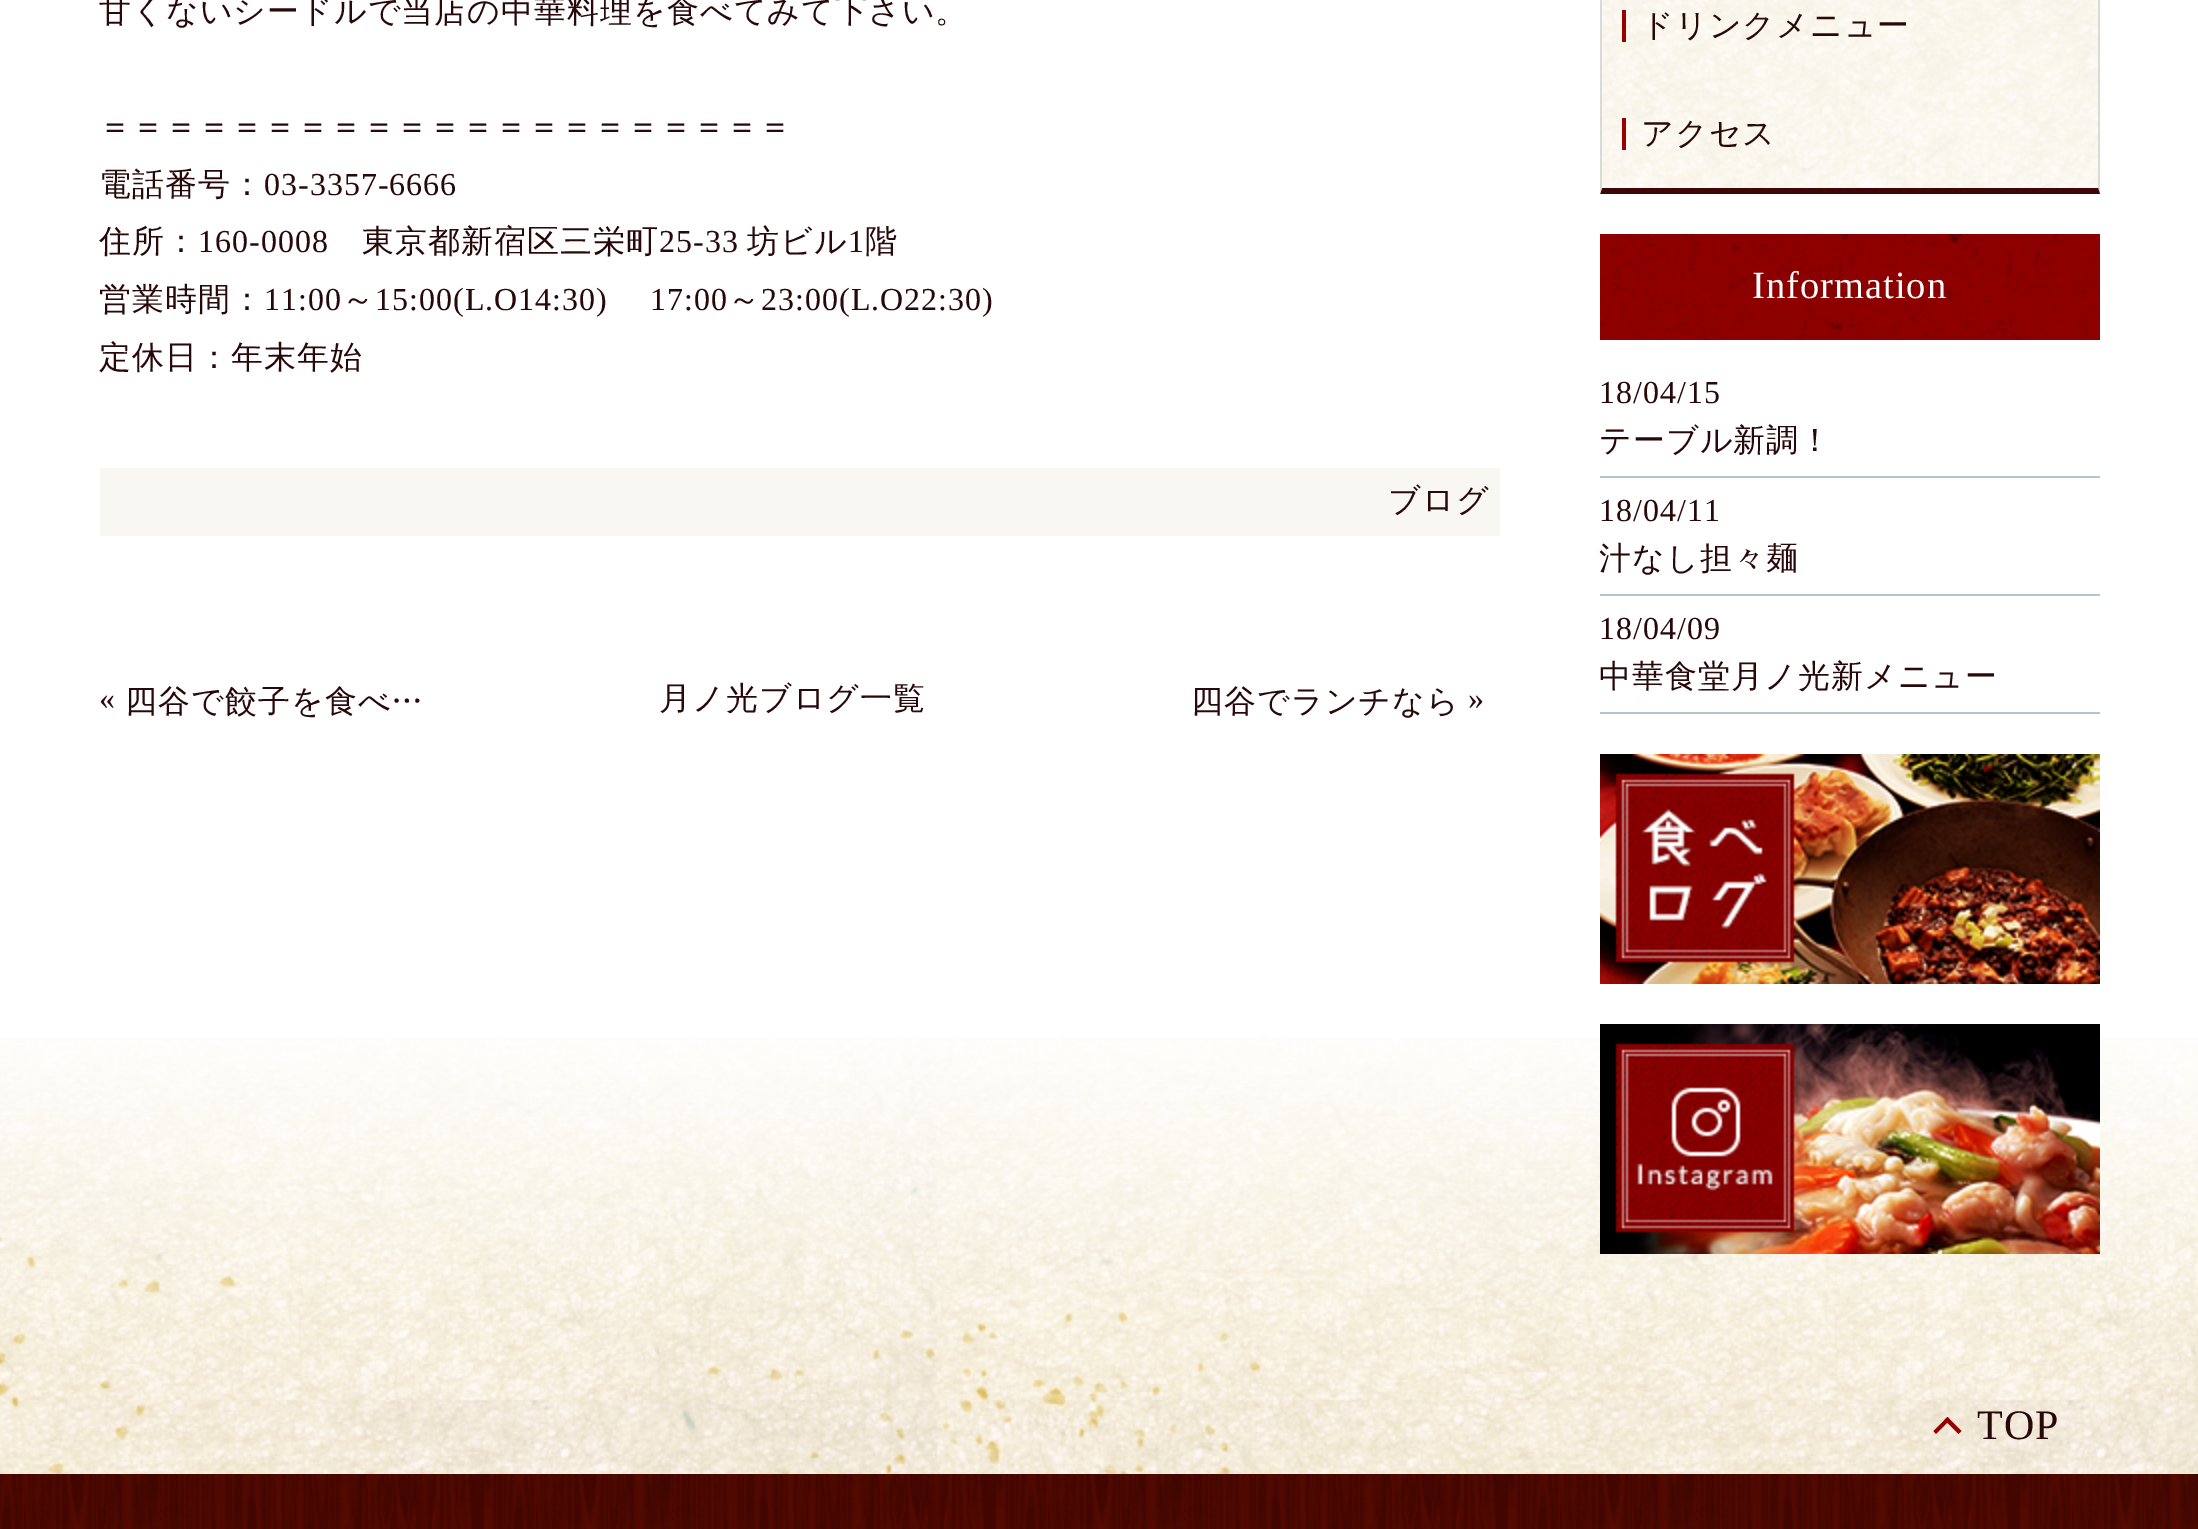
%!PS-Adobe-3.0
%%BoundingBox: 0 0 2198 1529
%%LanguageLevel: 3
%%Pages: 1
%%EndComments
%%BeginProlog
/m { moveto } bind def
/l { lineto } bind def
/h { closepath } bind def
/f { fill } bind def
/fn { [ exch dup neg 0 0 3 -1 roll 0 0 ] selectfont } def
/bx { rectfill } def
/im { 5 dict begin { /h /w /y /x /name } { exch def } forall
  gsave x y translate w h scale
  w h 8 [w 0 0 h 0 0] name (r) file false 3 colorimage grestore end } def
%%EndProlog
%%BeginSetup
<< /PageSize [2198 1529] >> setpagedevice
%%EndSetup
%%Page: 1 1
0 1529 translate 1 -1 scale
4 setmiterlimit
1 setgray
0 0 2198 1529 bx
/WenQuanYiZenHei-Medium 32 fn
0.157 0.031 0.031 setrgbcolor
99 22 m 1 0 (甘くないシードルで当店の中華料理を食べてみて下さい。) ashow
99 137 m 1 0 (＝＝＝＝＝＝＝＝＝＝＝＝＝＝＝＝＝＝＝＝＝) ashow
99 195 m 1 0 (電話番号：) ashow
/LiberationSerif-Regular 32 fn
264 195 m 1 0 (03-3357-6666) ashow
/WenQuanYiZenHei-Medium 32 fn
99 252 m 1 0 (住所：) ashow
/LiberationSerif-Regular 32 fn
198 252 m 1 0 (160-0008) ashow
/WenQuanYiZenHei-Medium 32 fn
362 252 m 1 0 (東京都新宿区三栄町) ashow
/LiberationSerif-Regular 32 fn
659 252 m 1 0 (25-33) ashow
/WenQuanYiZenHei-Medium 32 fn
747 252 m 1 0 (坊ビル) ashow
/LiberationSerif-Regular 32 fn
848 252 m 1 0 (1) ashow
/WenQuanYiZenHei-Medium 32 fn
865 252 m 1 0 (階) ashow
99 310 m 1 0 (営業時間：) ashow
/LiberationSerif-Regular 32 fn
264 310 m 1 0 (11:00) ashow
/WenQuanYiZenHei-Medium 32 fn
342 310 m 1 0 (～) ashow
/LiberationSerif-Regular 32 fn
375 310 m 1 0 (15:00\(L.O14:30\)) ashow
650 310 m 1 0 (17:00) ashow
/WenQuanYiZenHei-Medium 32 fn
728 310 m 1 0 (～) ashow
/LiberationSerif-Regular 32 fn
761 310 m 1 0 (23:00\(L.O22:30\)) ashow
/WenQuanYiZenHei-Medium 32 fn
99 368 m 1 0 (定休日：年末年始) ashow
0.973 0.969 0.945 setrgbcolor
100 468 1400 68 bx
0.157 0.031 0.031 setrgbcolor
1388 511 m 1 0 (ブログ) ashow
/LiberationSerif-Regular 32 fn
99 709 m 1 0 («) ashow
/WenQuanYiZenHei-Medium 32 fn
125 712 m 1 0 (四谷で餃子を食べ…) ashow
659 709 m 1 0 (月ノ光ブログ一覧) ashow
1191 712 m 1 0 (四谷でランチなら) ashow
/LiberationSerif-Regular 32 fn
1468 709 m 1 0 (») ashow
(image0.raw) 1600 0 500 194 im
0.859 0.855 0.855 setrgbcolor
2100 -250 m 2100 194 l 2098 188 l 2098 -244 l h f
0.243 0.024 0.024 setrgbcolor
2100 194 m 1600 194 l 1602 188 l 2098 188 l h f
0.859 0.855 0.855 setrgbcolor
1600 194 m 1600 -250 l 1602 -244 l 1602 188 l h f
0.588 0 0 setrgbcolor
1622 10 4 32 bx
/WenQuanYiZenHei-Medium 32 fn
0.157 0.031 0.031 setrgbcolor
1641 36 m 1 0 (ドリンクメニュー) ashow
0.588 0 0 setrgbcolor
1622 118 4 32 bx
0.157 0.031 0.031 setrgbcolor
1641 144 m 1 0 (アクセス) ashow
(image1.raw) 1600 234 500 106 im
/LiberationSerif-Regular 38.5 fn
0.996 setgray
1752 298 m 1 0 (Information) ashow
0.702 0.776 0.808 setrgbcolor
1600 476 500 2 bx
/LiberationSerif-Regular 32 fn
0.157 0.031 0.031 setrgbcolor
1599 403 m 1 0 (18/04/15) ashow
/WenQuanYiZenHei-Medium 32 fn
1599 451 m 1 0 (テーブル新調！) ashow
0.702 0.776 0.808 setrgbcolor
1600 594 500 2 bx
/LiberationSerif-Regular 32 fn
0.157 0.031 0.031 setrgbcolor
1599 521 m 1 0 (18/04/11) ashow
/WenQuanYiZenHei-Medium 32 fn
1599 569 m 1 0 (汁なし担々麺) ashow
0.702 0.776 0.808 setrgbcolor
1600 712 500 2 bx
/LiberationSerif-Regular 32 fn
0.157 0.031 0.031 setrgbcolor
1599 639 m 1 0 (18/04/09) ashow
/WenQuanYiZenHei-Medium 32 fn
1599 687 m 1 0 (中華食堂月ノ光新メニュー) ashow
(image2.raw) 1600 754 500 230 im
(image5.raw) 0 1037 2198 437 im
(image3.raw) 1600 1024 500 230 im
(image4.raw) 0 1474 2198 55 im
0.588 0 0 setrgbcolor
1933.5 1431 m 1947.5 1417 l 1950 1420 l 1936 1434 l h f
1944.5 1420 m 1947.5 1417 l 1961.5 1431 l 1958.5 1434 l h f
/LiberationSerif-Regular 42 fn
0.157 0.031 0.031 setrgbcolor
1977 1439 m 1 0 (TOP) ashow
showpage
%%EOF
